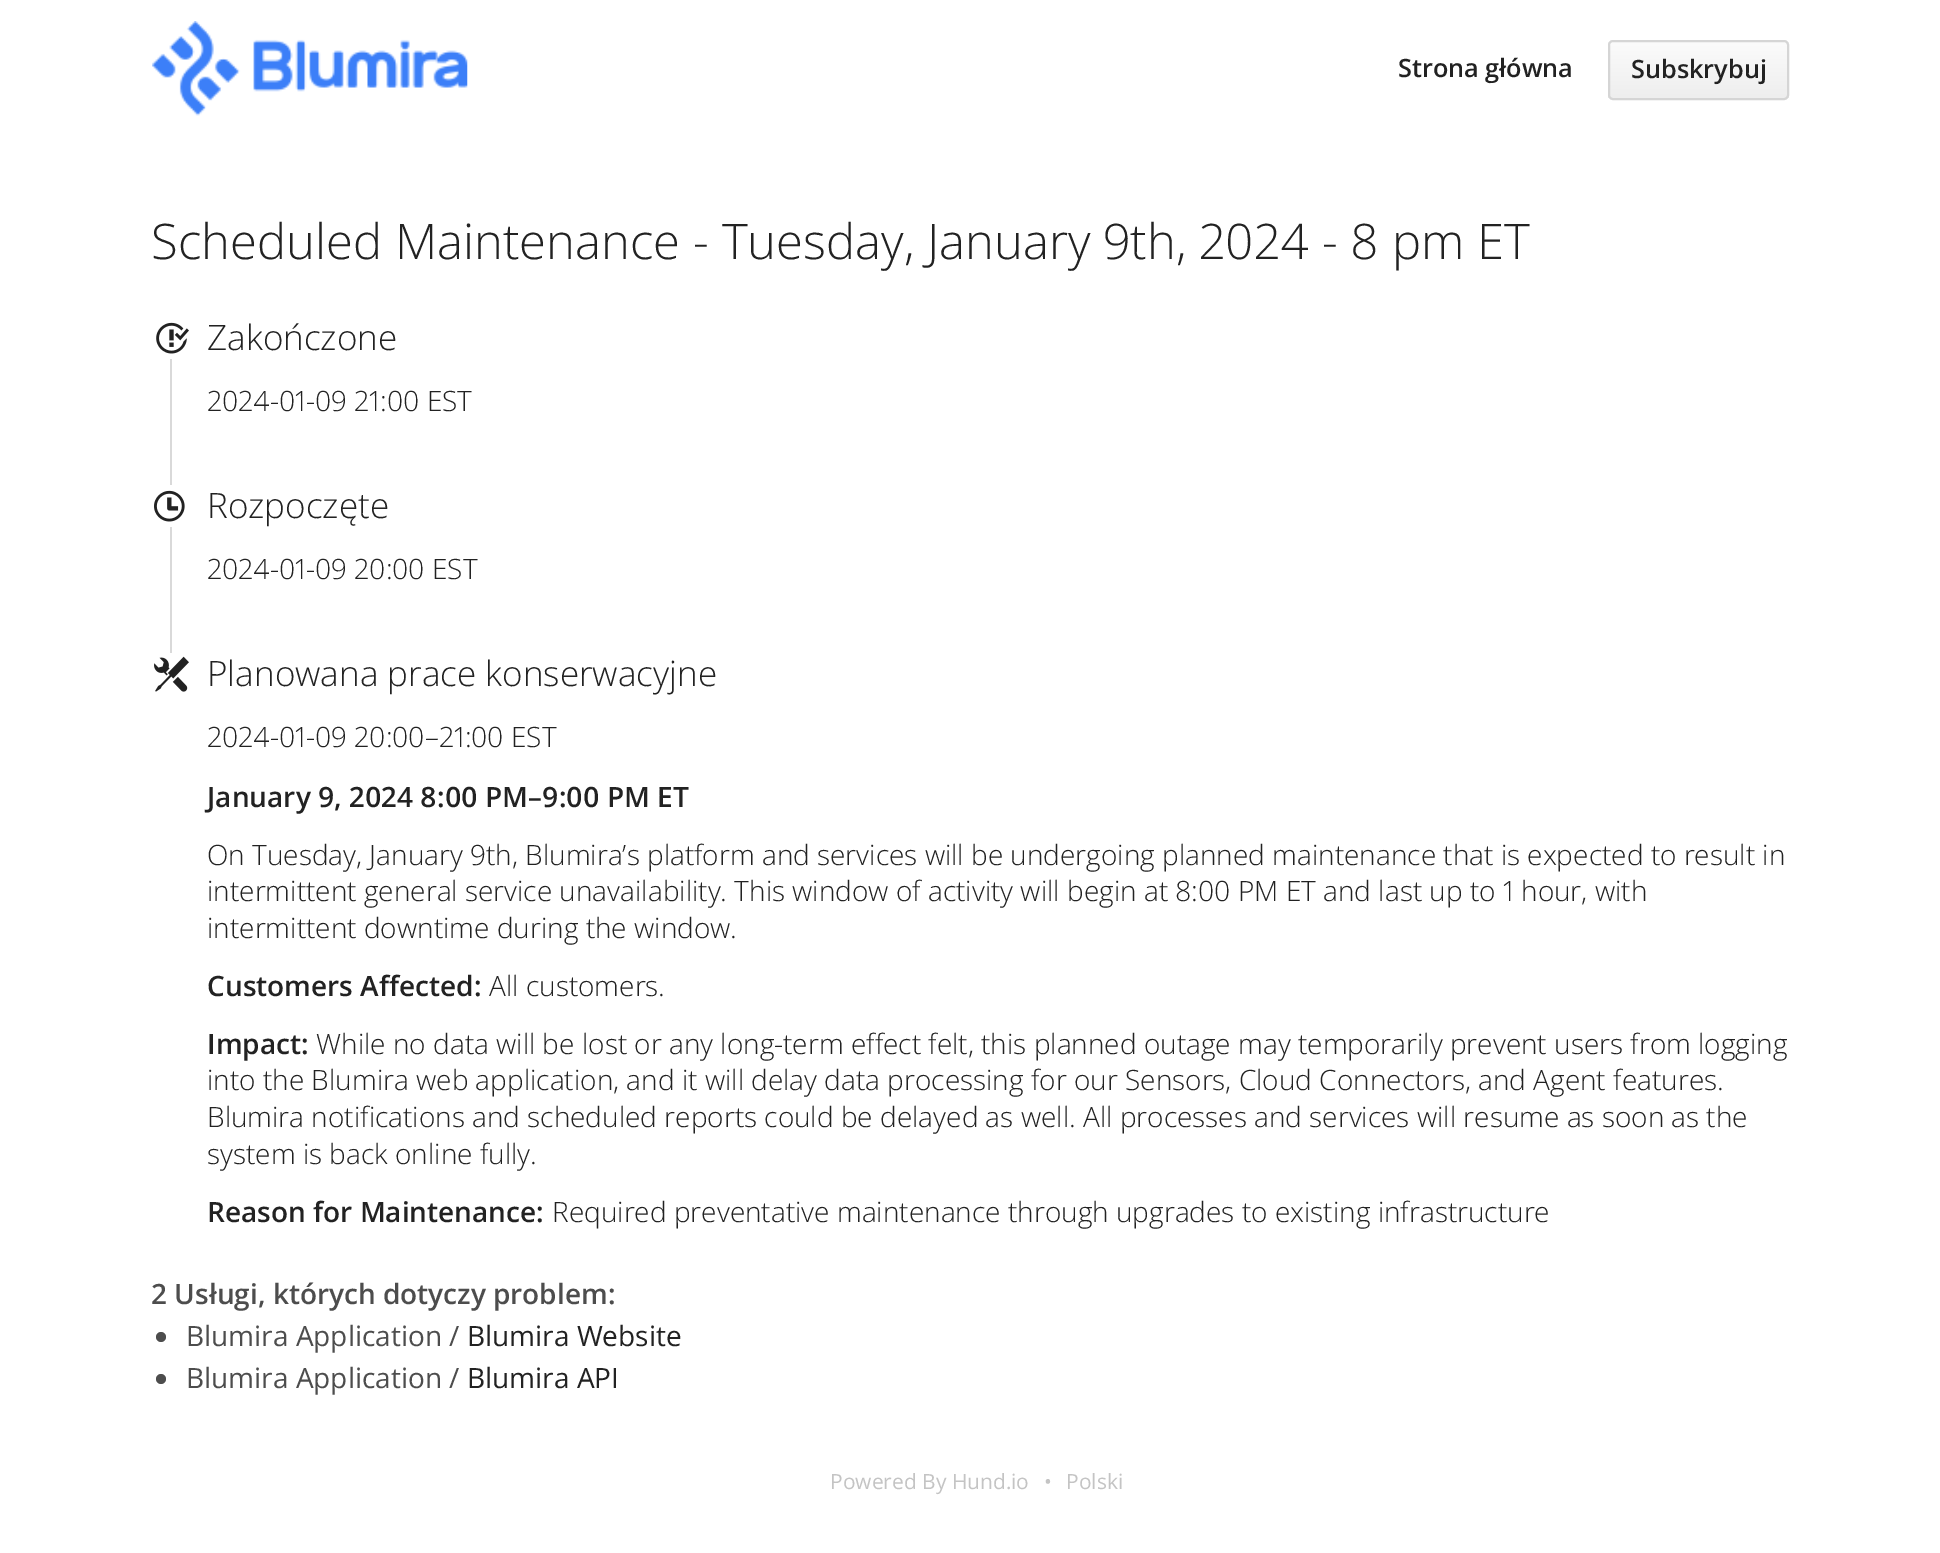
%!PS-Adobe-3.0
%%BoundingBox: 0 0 1940 1553
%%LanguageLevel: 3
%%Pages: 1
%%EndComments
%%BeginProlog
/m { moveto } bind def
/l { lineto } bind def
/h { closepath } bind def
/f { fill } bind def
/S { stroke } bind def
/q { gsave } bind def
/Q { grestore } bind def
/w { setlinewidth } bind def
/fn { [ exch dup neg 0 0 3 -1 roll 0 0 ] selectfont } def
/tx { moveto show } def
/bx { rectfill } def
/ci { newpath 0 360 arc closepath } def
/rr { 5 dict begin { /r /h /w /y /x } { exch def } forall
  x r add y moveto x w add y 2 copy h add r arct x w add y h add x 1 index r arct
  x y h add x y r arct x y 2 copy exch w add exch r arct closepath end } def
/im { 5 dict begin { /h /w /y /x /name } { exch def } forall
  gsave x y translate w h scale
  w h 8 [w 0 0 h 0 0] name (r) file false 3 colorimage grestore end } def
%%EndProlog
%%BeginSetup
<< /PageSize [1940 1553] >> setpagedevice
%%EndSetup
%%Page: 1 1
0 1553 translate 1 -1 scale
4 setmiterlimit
1 setgray
0 0 1940 1553 bx
(image0.raw) 152 21 316 95 im
/OpenSans-SemiBold 25.25 fn
0.133 setgray
(Strona główna) 1398 77 tx
q
1608 40 181 60 5 rr clip newpath
q 1608 42 m 1789 42 l 1789 98 l 1608 98 l h clip newpath
<< /ShadingType 2 /ColorSpace /DeviceRGB /Coords [1698 42 1698 98] /Extend [true true] /Function << /FunctionType 2 /Domain [0 1] /C0 [0.984 0.984 0.984] /C1 [0.933 0.933 0.933] /N 1 >> >> shfill Q
Q
0.835 setgray
2 w
1609 41 179 58 4 rr S
0.133 setgray
(Subskrybuj) 1631 78 tx
/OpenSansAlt-Light 49 fn
(Scheduled Maintenance - Tuesday, January 9th, 2024 - 8 pm ET) 151 259 tx
0.851 setgray
170 359 2 294 bx
(image1.raw) 156 322 33 32 im
/OpenSans-Light 35 fn
0.133 setgray
(Zakończone) 207 350 tx
/OpenSansAlt-Light 28 fn
(2024-01-09 21:00 EST) 207 411 tx
1 setgray
170 485 2 42 bx
(image2.raw) 154 490 31 32 im
/OpenSans-Light 35 fn
0.133 setgray
(Rozpoczęte) 207 518 tx
/OpenSansAlt-Light 28 fn
(2024-01-09 20:00 EST) 207 579 tx
(image3.raw) 154 656 35 36 im
/OpenSans-Light 35 fn
(Planowana prace konserwacyjne) 207 686 tx
/OpenSansAlt-Light 28 fn
(2024-01-09 20:00–21:00 EST) 207 747 tx
/OpenSansAlt-SemiBold 28 fn
(January 9, 2024 8:00 PM–9:00 PM ET) 207 807 tx
/OpenSans-Light 28 fn
(On Tuesday, January 9th, Blumira’s platform and services will be undergoing planned maintenance that is expected to result in) 207 865 tx
/OpenSansAlt-Light 28 fn
(intermittent general service unavailability. This window of activity will begin at 8:00 PM ET and last up to 1 hour, with) 207 901 tx
/OpenSans-Light 28 fn
(intermittent downtime during the window.) 207 938 tx
/OpenSans-SemiBold 28 fn
(Customers Affected:) 207 996 tx
/OpenSans-Light 28 fn
(All customers.) 489 996 tx
/OpenSans-SemiBold 28 fn
(Impact:) 207 1054 tx
/OpenSans-Light 28 fn
(While no data will be lost or any long-term effect felt, this planned outage may temporarily prevent users from logging) 316 1054 tx
(into the Blumira web application, and it will delay data processing for our Sensors, Cloud Connectors, and Agent features.) 207 1090 tx
(Blumira notifications and scheduled reports could be delayed as well. All processes and services will resume as soon as the) 207 1127 tx
(system is back online fully.) 207 1164 tx
/OpenSans-SemiBold 28 fn
(Reason for Maintenance:) 207 1222 tx
/OpenSans-Light 28 fn
(Required preventative maintenance through upgrades to existing infrastructure) 552 1222 tx
/OpenSans-SemiBold 28 fn
0.302 setgray
(2 Usługi, których dotyczy problem:) 151 1304 tx
161 1337 5 ci f
/OpenSans-Regular 28 fn
(Blumira Application /) 186 1346 tx
0.133 setgray
(Blumira Website) 467 1346 tx
0.302 setgray
161 1379 5 ci f
(Blumira Application /) 186 1388 tx
0.133 setgray
(Blumira API) 467 1388 tx
/OpenSans-Regular 21 fn
0.769 setgray
(Powered By Hund.io) 830 1489 tx
(•) 1044 1489 tx
(Polski) 1066 1489 tx
showpage
%%EOF
